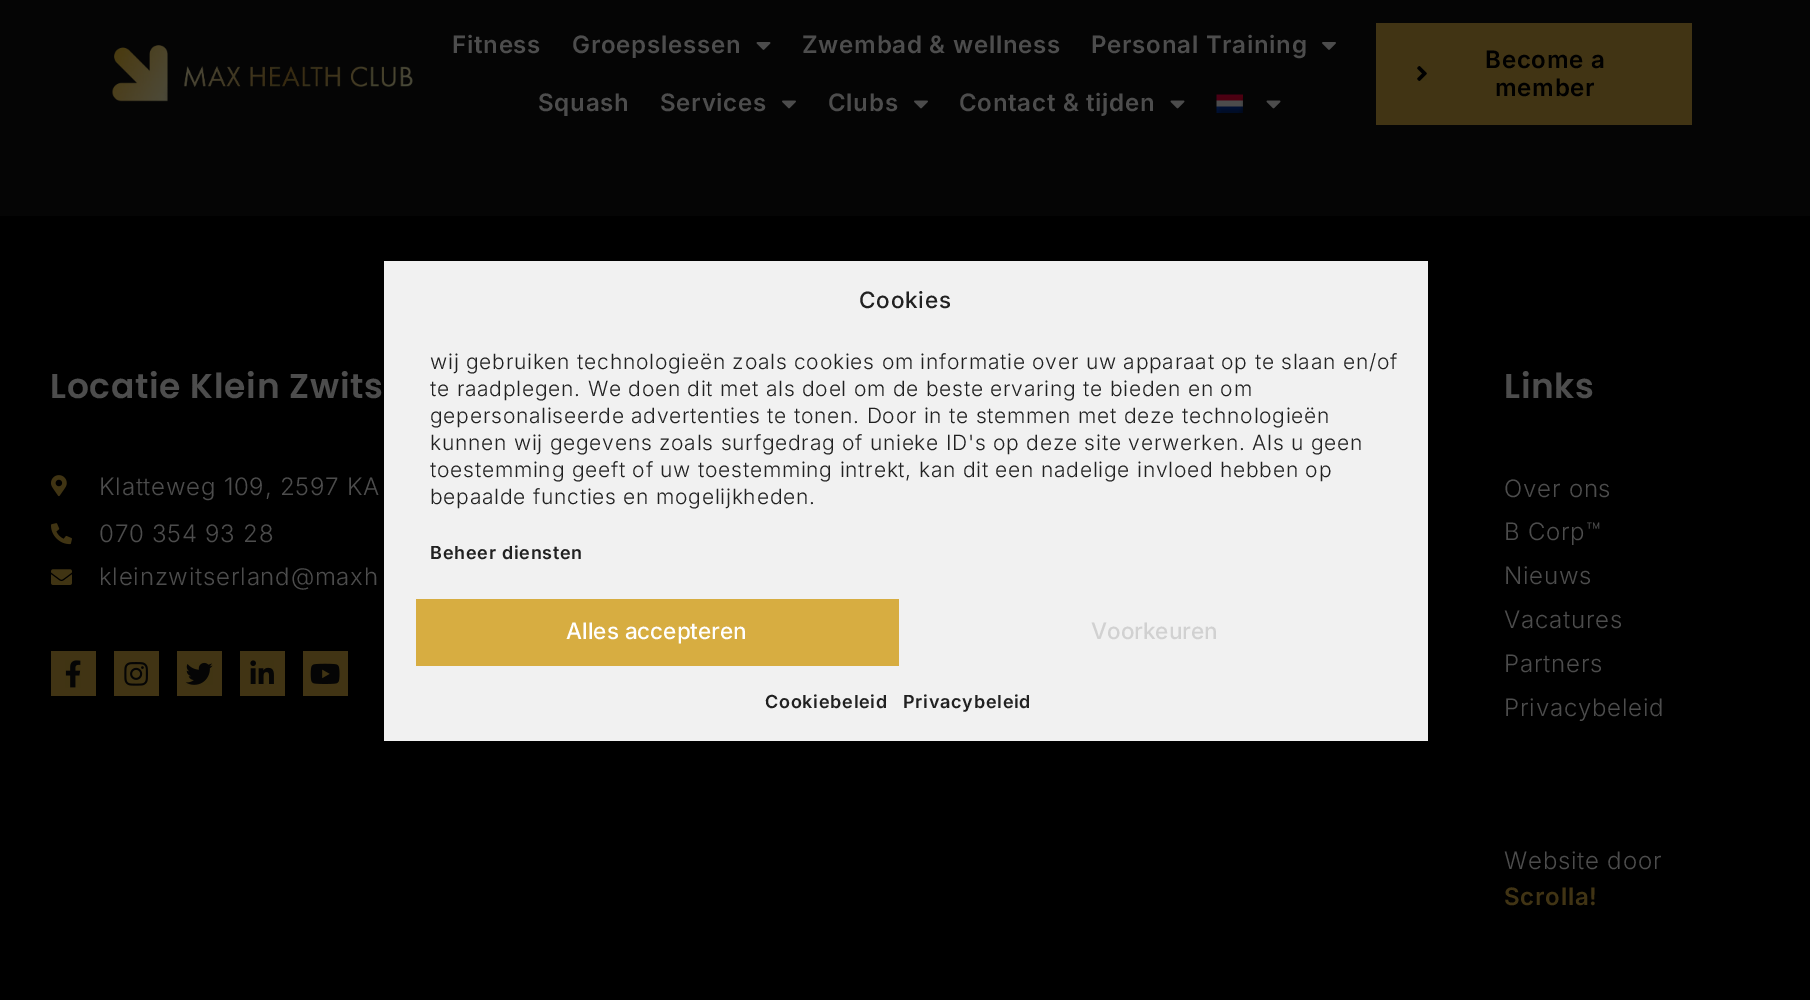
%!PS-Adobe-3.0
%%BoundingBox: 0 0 1810 1000
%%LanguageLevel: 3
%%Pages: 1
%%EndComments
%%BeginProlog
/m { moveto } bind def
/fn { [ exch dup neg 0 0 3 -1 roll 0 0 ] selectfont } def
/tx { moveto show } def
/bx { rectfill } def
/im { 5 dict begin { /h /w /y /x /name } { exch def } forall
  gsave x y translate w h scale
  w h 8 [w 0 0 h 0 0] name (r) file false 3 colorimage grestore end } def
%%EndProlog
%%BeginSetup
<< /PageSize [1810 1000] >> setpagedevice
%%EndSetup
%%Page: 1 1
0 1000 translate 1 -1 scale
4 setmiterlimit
0.02 setgray
0 0 1810 1000 bx
(image0.raw) 112 45 301 57 im
/Inter-SemiBold 24 fn
0.302 setgray
452 53 m 0.75 0 (Fitness) ashow
572 53 m 0.75 0 (Groepslessen) ashow
(image1.raw) 756 42 15 8 im
802 53 m 0.75 0 (Zwembad & wellness) ashow
1091 53 m 0.75 0 (Personal Training) ashow
(image2.raw) 1322 42 14 8 im
538 111 m 0.75 0 (Squash) ashow
660 111 m 0.75 0 (Services) ashow
(image3.raw) 782 100 14 9 im
828 111 m 0.75 0 (Clubs) ashow
(image3.raw) 914 100 14 9 im
959 111 m 0.75 0 (Contact & tijden) ashow
(image4.raw) 1170 100 15 9 im
(image5.raw) 1216 94 27 19 im
(image4.raw) 1266 100 15 9 im
0.255 0.204 0.078 setrgbcolor
1376 23 316 102 bx
(image6.raw) 1417 66 10 15 im
0 setgray
1485 68 m 0.75 0 (Become a) ashow
1495 96 m 0.75 0 (member) ashow
0 216 1810 784 bx
0.945 setgray
384 261 1044 480 bx
/Inter-Medium 22.5 fn
0.129 setgray
859 308 m 0.75 0 (Cookies) ashow
/Inter-Light 21 fn
430 369 m 0.75 0 (wij gebruiken technologieën zoals cookies om informatie over uw apparaat op te slaan en/of) ashow
430 396 m 0.75 0 (te raadplegen. We doen dit met als doel om de beste ervaring te bieden en om) ashow
430 423 m 0.75 0 (gepersonaliseerde advertenties te tonen. Door in te stemmen met deze technologieën) ashow
430 450 m 0.75 0 (kunnen wij gegevens zoals surfgedrag of unieke ID's op deze site verwerken. Als u geen) ashow
430 477 m 0.75 0 (toestemming geeft of uw toestemming intrekt, kan dit een nadelige invloed hebben op) ashow
430 504 m 0.75 0 (bepaalde functies en mogelijkheden.) ashow
/Inter-SemiBold 18 fn
430 559 m 0.75 0 (Beheer diensten) ashow
0.843 0.678 0.255 setrgbcolor
416 599 483 67 bx
/Inter-Medium 22.5 fn
1 setgray
(Alles accepteren) 566 639 tx
0.82 setgray
(Voorkeuren) 1091 639 tx
/Inter-SemiBold 18 fn
0.129 setgray
765 708 m 0.75 0 (Cookiebeleid) ashow
903 708 m 0.75 0 (Privacybeleid) ashow
/Poppins-SemiBold 34.5 fn
0.302 setgray
50 398 m 0.75 0 (Locatie Klein Zwits) ashow
(image7.raw) 51 475 16 22 im
/Inter-Light 24 fn
99 495 m 0.75 0 (Klatteweg 109, 2597 KA) ashow
(image8.raw) 51 523 21 22 im
99 542 m 0.75 0 (070 354 93 28) ashow
(image9.raw) 51 569 21 16 im
99 585 m 0.75 0 (kleinzwitserland@maxh) ashow
0.255 0.204 0.078 setrgbcolor
51 651 45 45 bx
(image10.raw) 65 660 16 28 im
114 651 45 45 bx
(image11.raw) 124 662 24 24 im
177 651 45 45 bx
(image12.raw) 185 662 28 23 im
240 651 45 45 bx
(image13.raw) 250 660 24 24 im
303 651 45 45 bx
(image14.raw) 310 663 30 21 im
/Poppins-SemiBold 34.5 fn
0.302 setgray
1504 398 m 0.75 0 (Links) ashow
/Inter-Light 24 fn
1504 497 m 0.75 0 (Over ons) ashow
1504 540 m 0.75 0 (B Corp™) ashow
1504 584 m 0.75 0 (Nieuws) ashow
1504 628 m 0.75 0 (Vacatures) ashow
1504 672 m 0.75 0 (Partners) ashow
1504 716 m 0.75 0 (Privacybeleid) ashow
1504 869 m 0.75 0 (Website door) ashow
/Inter-SemiBold 24 fn
0.255 0.204 0.078 setrgbcolor
1504 905 m 0.75 0 (Scrolla!) ashow
showpage
%%EOF
